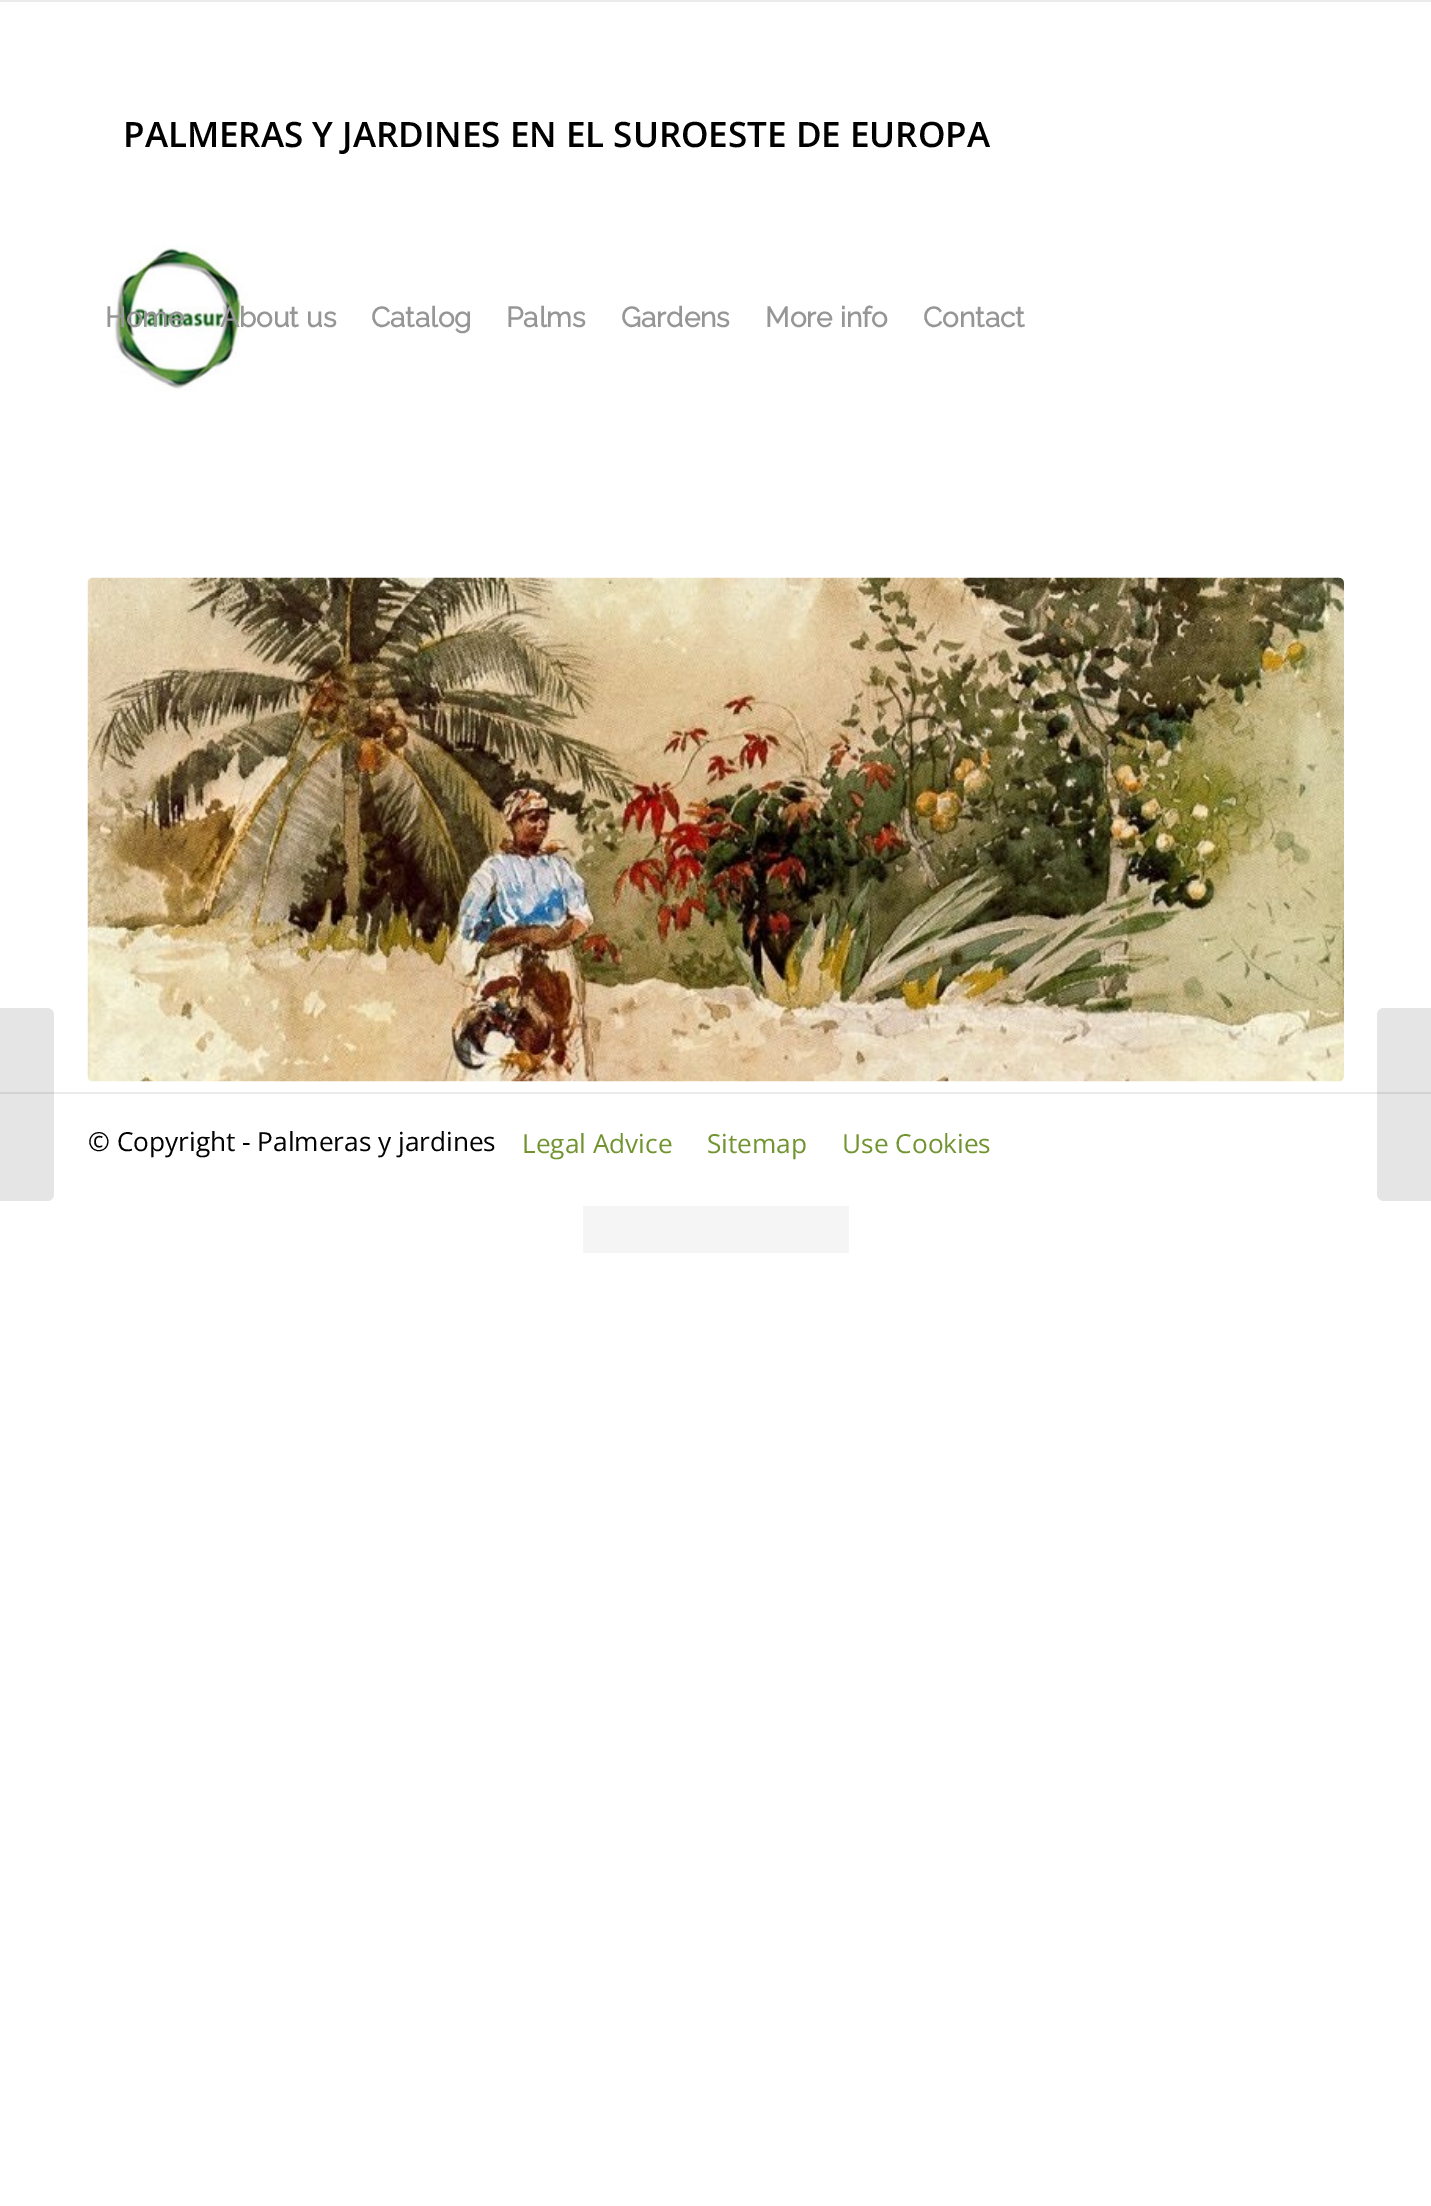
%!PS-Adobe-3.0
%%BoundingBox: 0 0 1431 2206
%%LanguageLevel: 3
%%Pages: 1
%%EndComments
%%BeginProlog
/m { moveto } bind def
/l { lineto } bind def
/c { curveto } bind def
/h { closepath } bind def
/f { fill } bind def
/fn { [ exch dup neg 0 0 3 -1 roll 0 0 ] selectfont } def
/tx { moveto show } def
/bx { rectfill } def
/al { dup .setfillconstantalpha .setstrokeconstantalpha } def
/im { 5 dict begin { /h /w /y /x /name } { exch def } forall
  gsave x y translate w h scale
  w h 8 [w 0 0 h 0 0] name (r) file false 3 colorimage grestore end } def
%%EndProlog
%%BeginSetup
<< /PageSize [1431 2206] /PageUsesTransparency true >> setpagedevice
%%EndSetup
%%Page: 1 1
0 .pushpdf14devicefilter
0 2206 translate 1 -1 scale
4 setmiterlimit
1 setgray
0 0 1431 2206 bx
0.922 setgray
0 0 1431 2 bx
/OpenSans-SemiBold 35 fn
0 setgray
(PALMERAS Y JARDINES EN EL SUROESTE DE EUROPA) 123 147 tx
(image0.raw) 113 245 139 146 im
/Raleway-Bold 28 fn
0.588 setgray
(Home) 105 327 tx
(About us) 220 327 tx
(Catalog) 371 327 tx
(Palms) 506 327 tx
(Gardens) 621 327 tx
(More info) 765 327 tx
(Contact) 923 327 tx
0.922 setgray
0 1092 1431 2 bx
0.1 al
0 setgray
0 1008 m 47 1008 l 51 1008 54 1011 54 1015 c 54 1194 l 54 1198 51 1201 47 1201 c 0 1201 l h f
1 al
(image1.raw) 87 577 1257 505 im
/OpenSans-Regular 26.25 fn
(© Copyright - Palmeras y jardines) 88 1151 tx
0.443 0.58 0.188 setrgbcolor
(Legal Advice) 522 1153 tx
(Sitemap) 707 1153 tx
(Use Cookies) 842 1153 tx
0.1 al
0 setgray
1384 1008 m 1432 1008 l 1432 1201 l 1384 1201 l 1380 1201 1377 1198 1377 1194 c 1377 1015 l 1377 1011 1380 1008 1384 1008 c h f
1 al
0.961 setgray
583 1206 266 47 bx
.poppdf14devicefilter showpage
%%EOF
